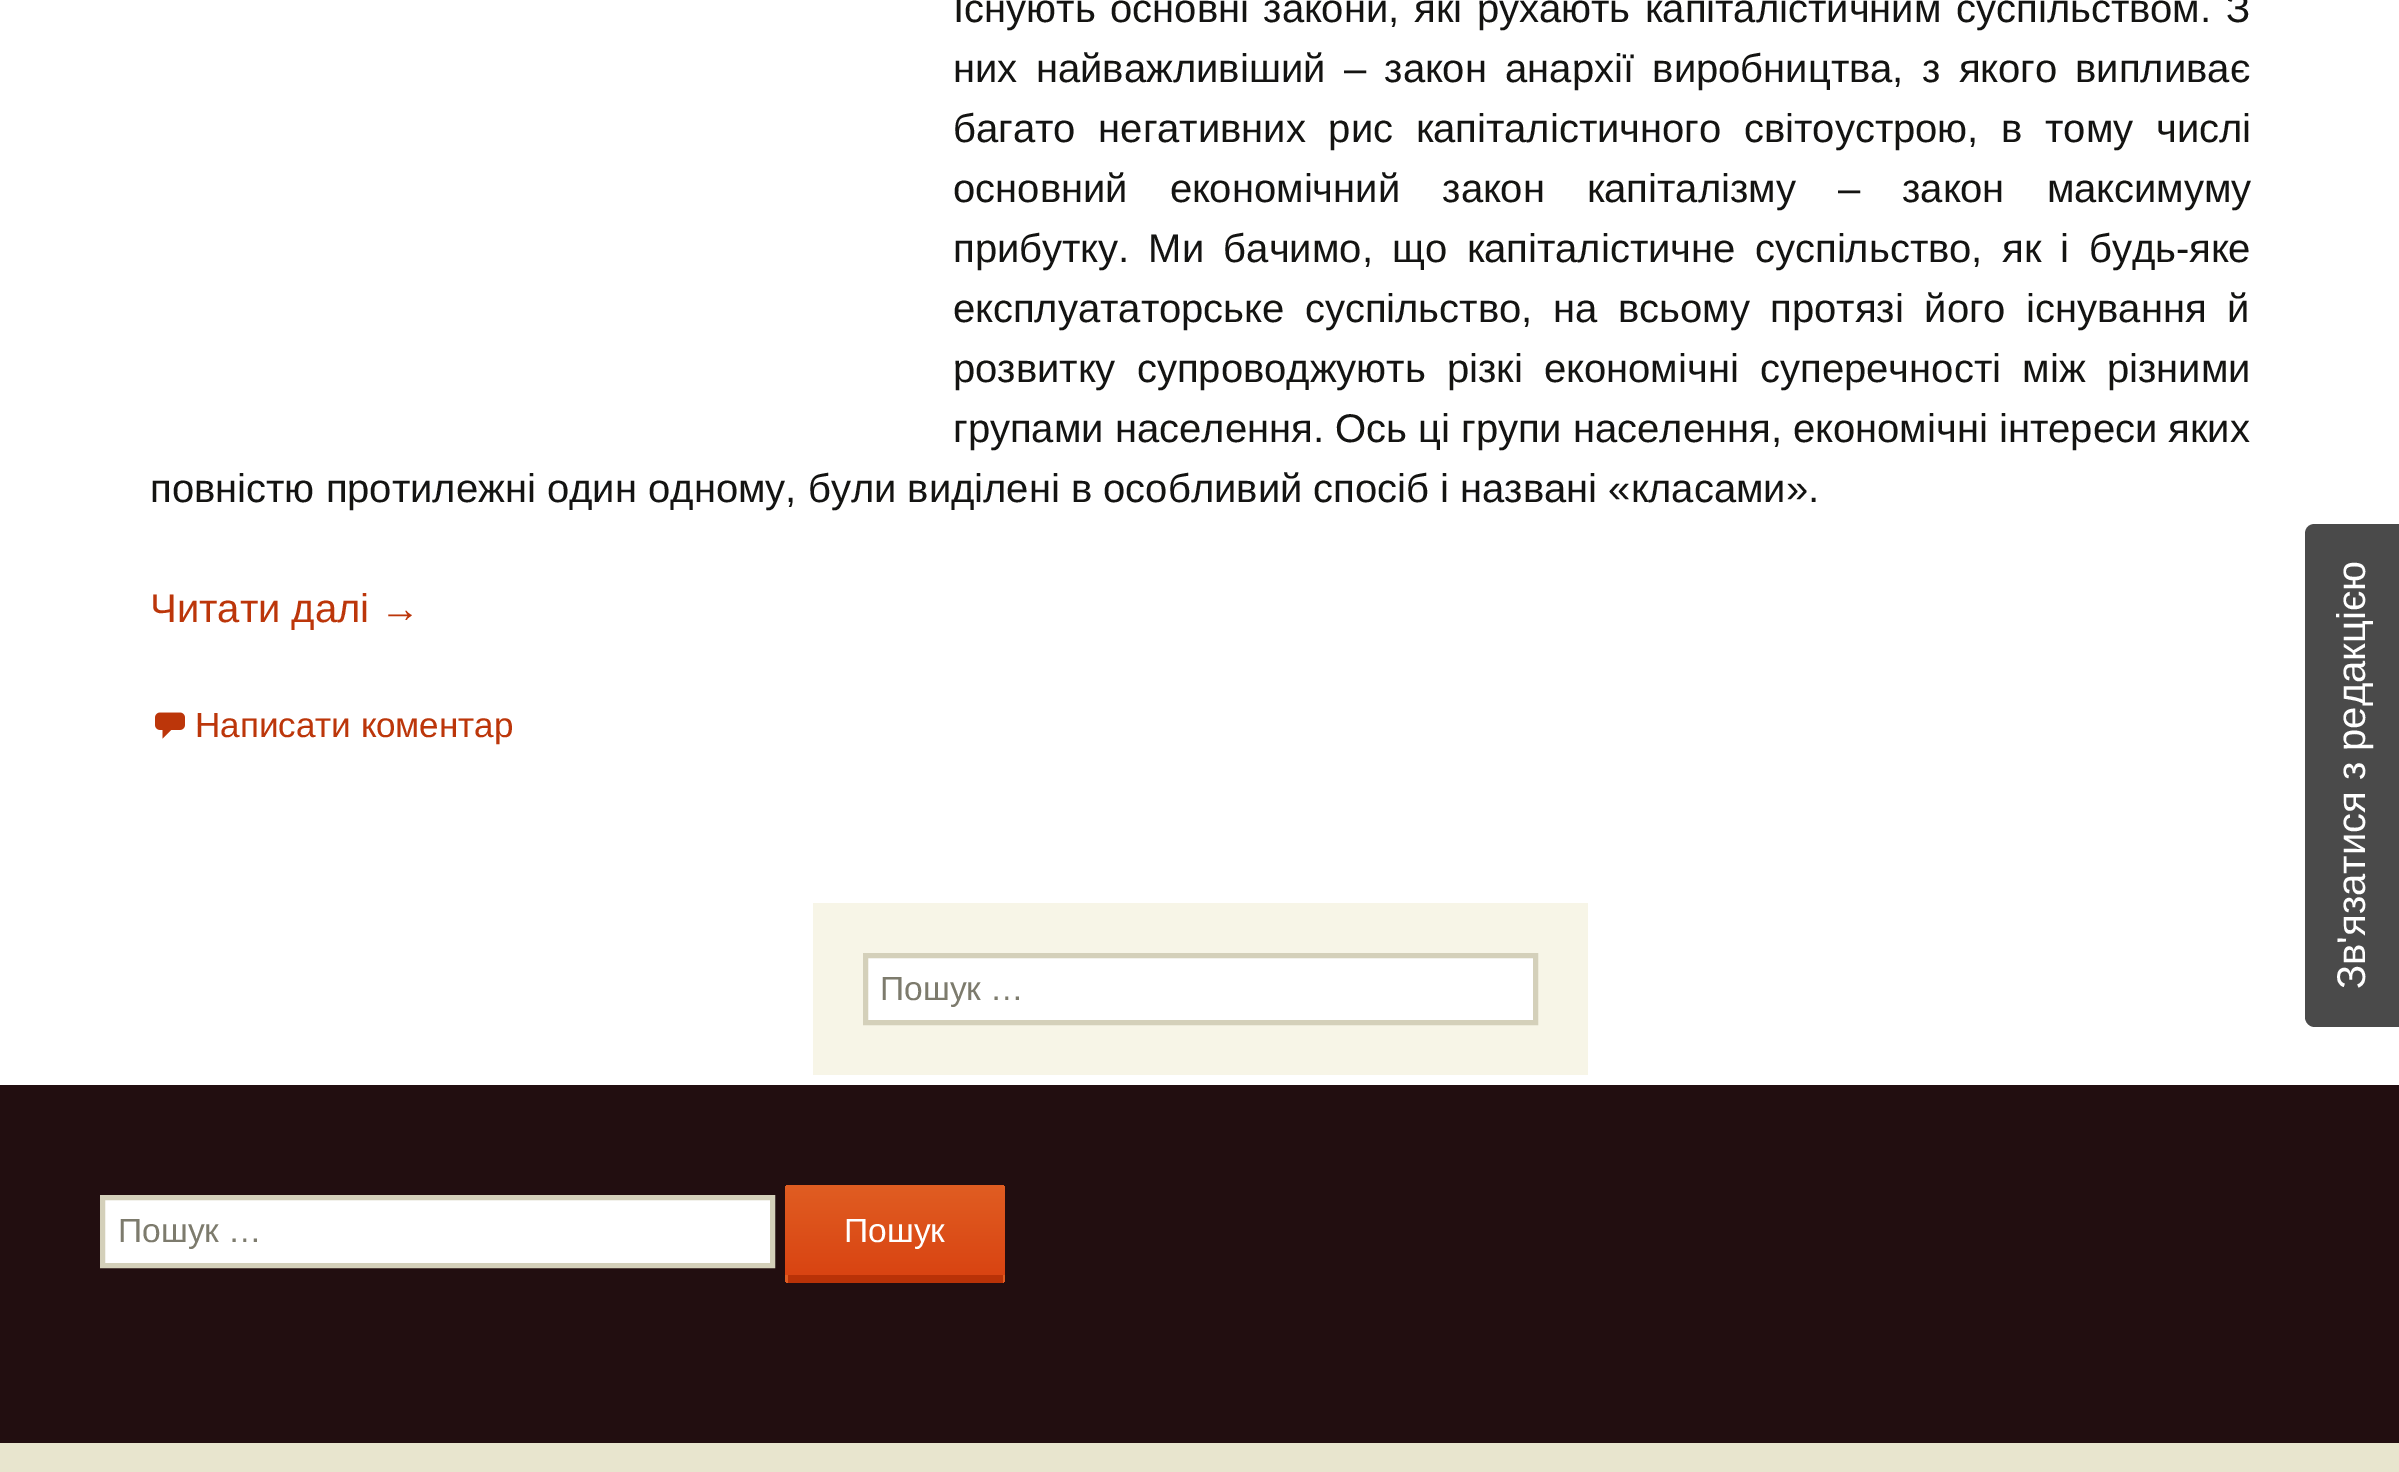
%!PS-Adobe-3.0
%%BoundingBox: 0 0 2399 1472
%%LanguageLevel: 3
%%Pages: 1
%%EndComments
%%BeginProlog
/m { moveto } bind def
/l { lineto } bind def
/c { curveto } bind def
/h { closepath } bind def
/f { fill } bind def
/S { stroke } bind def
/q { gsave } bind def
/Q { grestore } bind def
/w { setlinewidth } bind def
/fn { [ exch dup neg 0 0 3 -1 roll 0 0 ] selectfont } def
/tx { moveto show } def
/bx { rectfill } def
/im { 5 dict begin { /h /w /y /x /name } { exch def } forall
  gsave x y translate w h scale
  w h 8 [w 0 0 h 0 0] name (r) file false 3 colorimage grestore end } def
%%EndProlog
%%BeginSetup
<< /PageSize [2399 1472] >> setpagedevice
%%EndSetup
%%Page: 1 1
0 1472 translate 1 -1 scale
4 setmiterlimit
1 setgray
0 0 2399 1472 bx
/LiberationSans-Regular 40 fn
0.078 0.078 0.071 setrgbcolor
953 22 m 3.5 0 32 (Існують основні закони, які рухають капіталістичним суспільством. З) widthshow
953 82 m 7.25 0 32 (них найважливіший – закон анархії виробництва, з якого випливає) widthshow
953 142 m 11.5 0 32 (багато негативних рис капіталістичного світоустрою, в тому числі) widthshow
953 202 m 31 0 32 (основний економічний закон капіталізму – закон максимуму) widthshow
953 262 m 8.25 0 32 (прибутку. Ми бачимо, що капіталістичне суспільство, як і будь-яке) widthshow
953 322 m 9.5 0 32 (експлуататорське суспільство, на всьому протязі його існування й) widthshow
953 382 m 10.25 0 32 (розвитку супроводжують різкі економічні суперечності між різними) widthshow
(групами населення. Ось ці групи населення, економічні інтереси яких) 953 442 tx
(повністю протилежні один одному, були виділені в особливий спосіб і названі «класами».) 150 502 tx
0.737 0.212 0.039 setrgbcolor
(Читати далі →) 150 622 tx
(image0.raw) 155 712 30 27 im
/LiberationSans-Regular 35 fn
(Написати коментар) 195 737 tx
0.969 0.961 0.906 setrgbcolor
813 903 775 172 bx
1 setgray
865.5 955.5 m 1535.5 955.5 l 1535.5 1022.5 l 865.5 1022.5 l h q f Q
0.831 0.816 0.729 setrgbcolor
5 w
S
/LiberationSans-Regular 33.5 fn
0.49 0.482 0.427 setrgbcolor
(Пошук …) 880 1000 tx
0.91 0.898 0.808 setrgbcolor
0 1443 2399 29 bx
0.133 0.055 0.063 setrgbcolor
0 1085 2399 358 bx
1 setgray
102.5 1197.5 m 772.5 1197.5 l 772.5 1265.5 l 102.5 1265.5 l h q f Q
0.831 0.816 0.729 setrgbcolor
S
0.49 0.482 0.427 setrgbcolor
(Пошук …) 118 1242 tx
q 790 1185 m 1000 1185 l 1003 1185 1005 1187 1005 1190 c 1005 1275 l 785 1275 l 785 1190 l 785 1187 787 1185 790 1185 c h clip newpath
<< /ShadingType 2 /ColorSpace /DeviceRGB /Coords [895 1185 895 1275] /Extend [true true] /Function << /FunctionType 2 /Domain [0 1] /C0 [0.878 0.365 0.133] /C1 [0.851 0.267 0.071] /N 1 >> >> shfill Q
q 785 1275 m 1005 1275 l 1005 1278 l 1005 1281 1003 1283 1000 1283 c 790 1283 l 787 1283 785 1281 785 1278 c h clip newpath
<< /ShadingType 2 /ColorSpace /DeviceRGB /Coords [895 1275 895 1365] /Extend [true true] /Function << /FunctionType 2 /Domain [0 1] /C0 [0.878 0.365 0.133] /C1 [0.851 0.267 0.071] /N 1 >> >> shfill Q
0.725 0.196 0.027 setrgbcolor
788 1275 215 8 bx
1 setgray
(Пошук) 844 1242 tx
0.29 setgray
2305 1017 m 2305 534 l 2305 528 2309 524 2315 524 c 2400 524 l 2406 524 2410 528 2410 534 c 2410 1017 l 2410 1022 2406 1027 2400 1027 c 2315 1027 l 2309 1027 2305 1022 2305 1017 c h f
/LiberationSans-Regular 40 fn
1 setgray
q 2365 989 translate -90 rotate 0 0 m (Зв'язатися з редакцією) show Q
showpage
%%EOF
